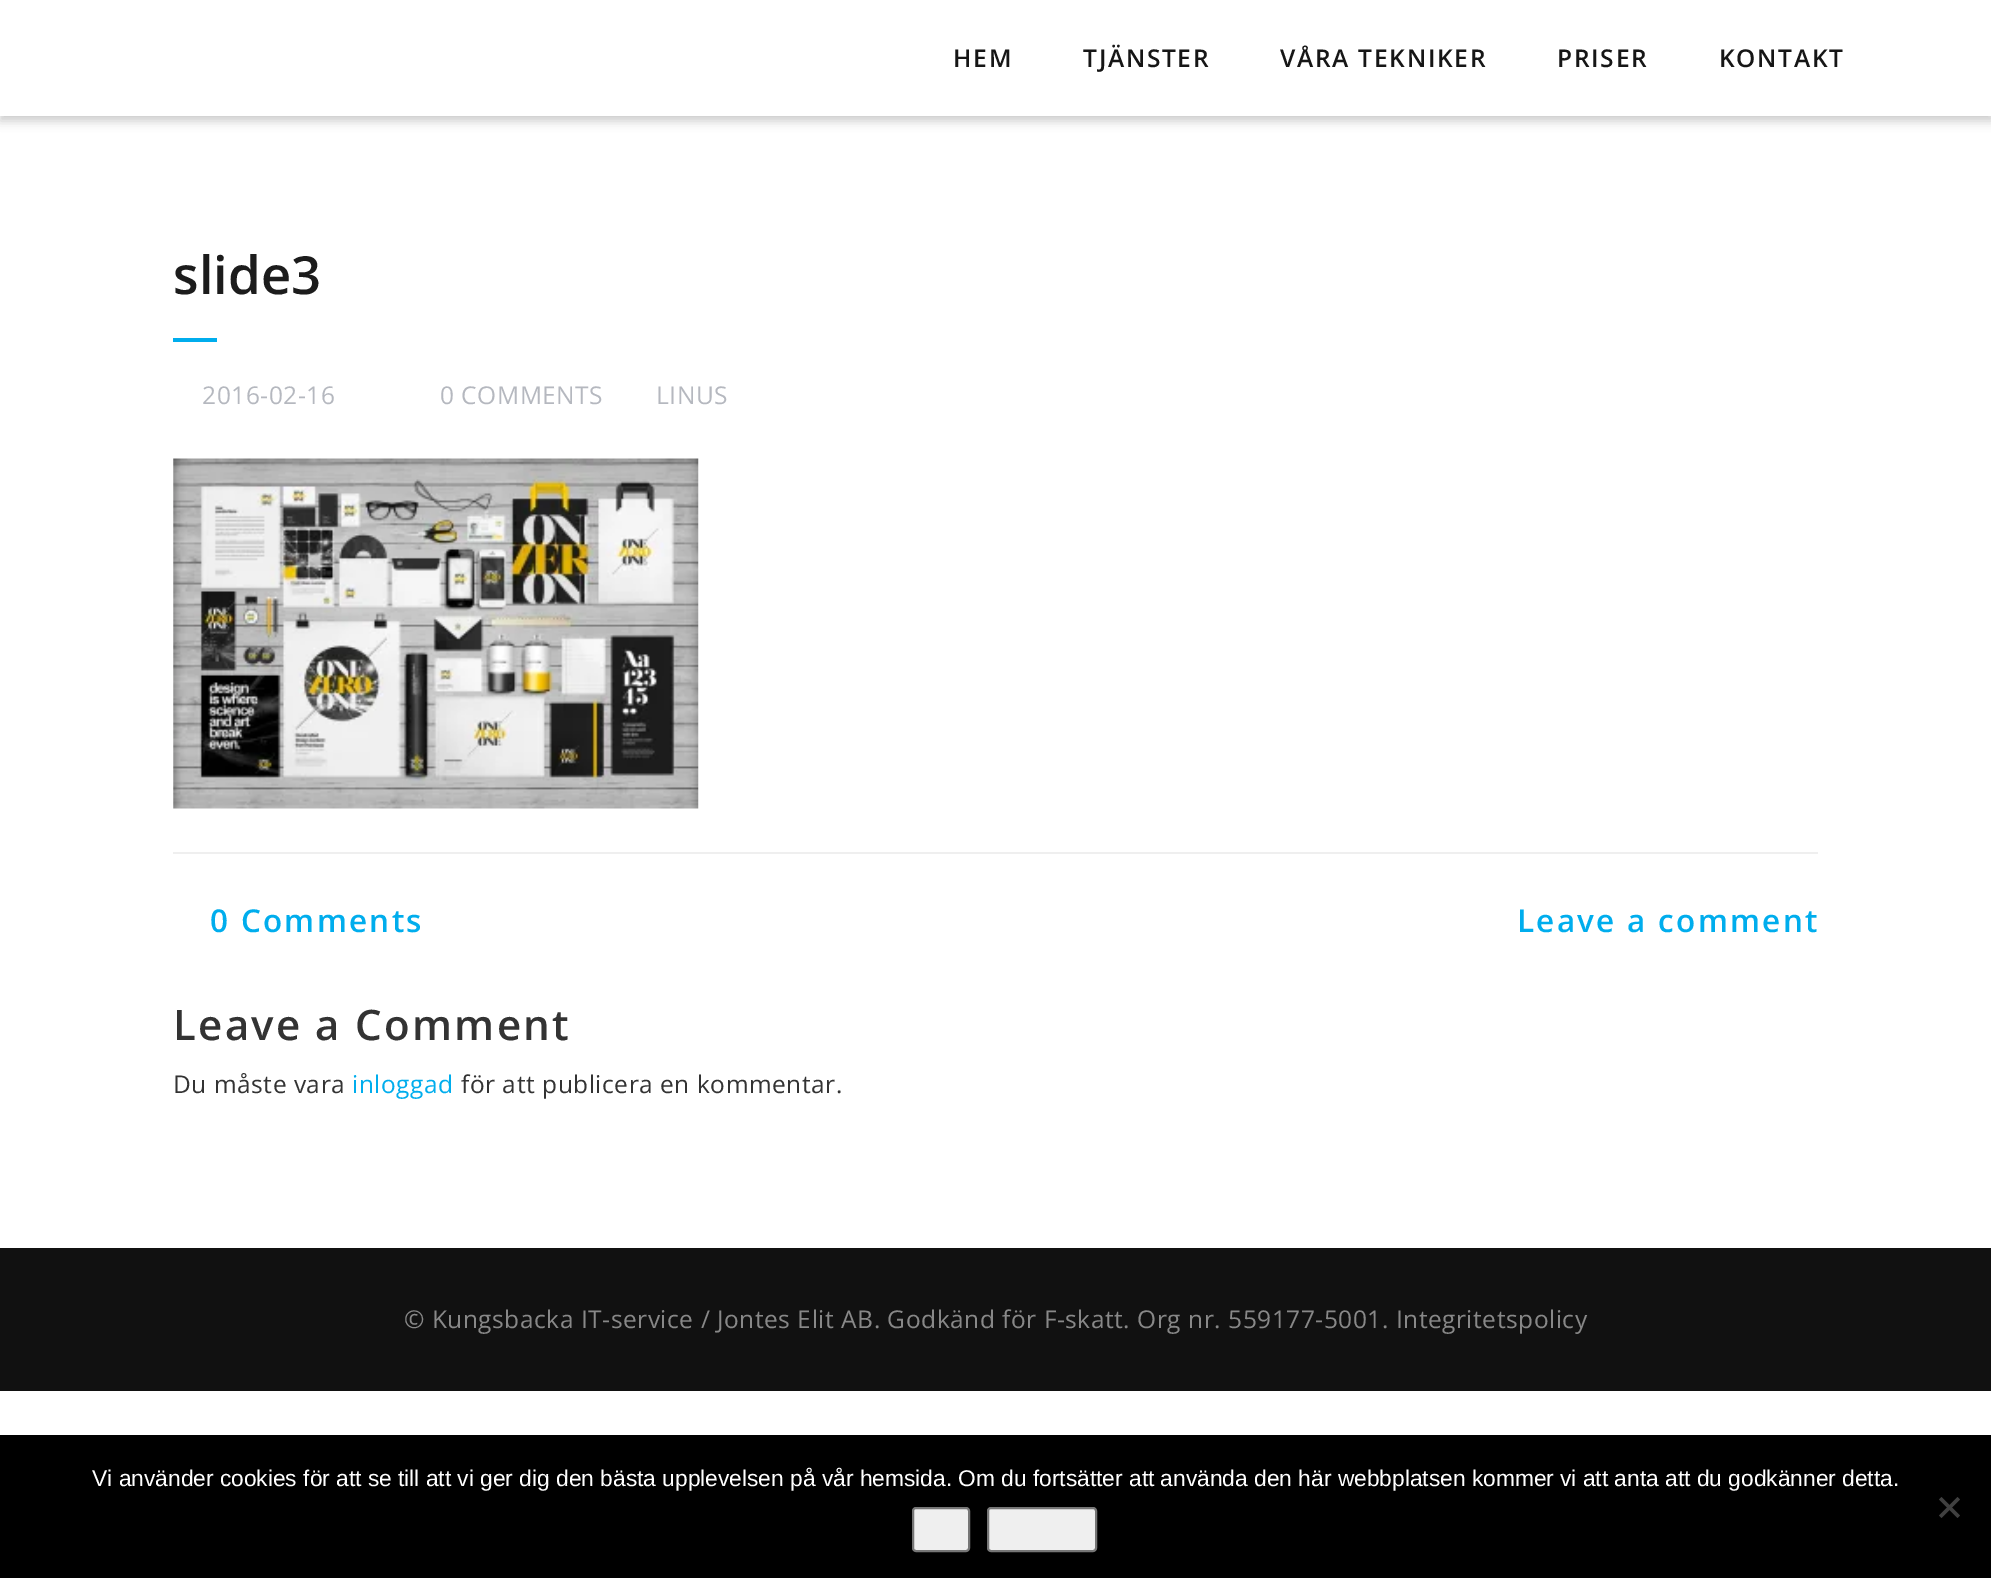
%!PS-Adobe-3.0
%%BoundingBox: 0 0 1991 1578
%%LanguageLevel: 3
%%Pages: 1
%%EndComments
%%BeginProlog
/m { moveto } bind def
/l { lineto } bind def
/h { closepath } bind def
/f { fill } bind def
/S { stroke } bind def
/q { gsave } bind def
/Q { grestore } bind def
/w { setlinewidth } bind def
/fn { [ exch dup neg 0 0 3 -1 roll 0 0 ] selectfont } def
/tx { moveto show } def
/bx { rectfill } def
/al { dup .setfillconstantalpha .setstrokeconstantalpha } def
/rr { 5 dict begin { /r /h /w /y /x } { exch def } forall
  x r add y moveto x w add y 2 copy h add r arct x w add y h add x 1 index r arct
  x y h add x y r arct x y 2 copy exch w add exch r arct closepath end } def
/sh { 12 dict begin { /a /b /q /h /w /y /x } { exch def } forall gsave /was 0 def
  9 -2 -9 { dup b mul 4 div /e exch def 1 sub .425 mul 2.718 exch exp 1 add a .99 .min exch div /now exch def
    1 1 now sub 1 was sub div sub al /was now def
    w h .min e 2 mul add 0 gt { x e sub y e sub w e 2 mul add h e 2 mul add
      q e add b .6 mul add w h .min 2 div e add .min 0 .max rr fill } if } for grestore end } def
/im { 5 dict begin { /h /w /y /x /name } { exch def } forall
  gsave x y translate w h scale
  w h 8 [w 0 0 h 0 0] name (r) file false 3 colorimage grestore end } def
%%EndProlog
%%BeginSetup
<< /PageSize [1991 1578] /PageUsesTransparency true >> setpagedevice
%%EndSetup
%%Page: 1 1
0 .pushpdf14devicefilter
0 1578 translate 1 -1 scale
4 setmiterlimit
1 setgray
0 0 1991 1578 bx
0 setgray
0 5 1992 116 0 5 0.2 sh
1 setgray
0 0 1991 116 bx
/OpenSans-SemiBold 24.5 fn
0.086 setgray
953 67 m 1.75 0 (HEM) ashow
1083 67 m 1.75 0 (TJÄNSTER) ashow
1280 67 m 1.75 0 (VÅRA TEKNIKER) ashow
1557 67 m 1.75 0 (PRISER) ashow
1719 67 m 1.75 0 (KONTAKT) ashow
/OpenSans-SemiBold 52.5 fn
0.11 setgray
(slide3) 173 294 tx
0 0.678 0.929 setrgbcolor
173 338 44 4 bx
/OpenSans-Regular 24.5 fn
0.71 0.722 0.749 setrgbcolor
202 404 m 0.53 0 (2016-02-16) ashow
440 404 m 0.53 0 (0 COMMENTS) ashow
656 404 m 0.53 0 (LINUS) ashow
(image0.raw) 173 458 526 351 im
0.937 setgray
173 852 1645 2 bx
/OpenSans-SemiBold 31.5 fn
0 0.678 0.929 setrgbcolor
210 932 m 2.25 0 (0 Comments) ashow
1517 932 m 2.25 0 (Leave a comment) ashow
/OpenSans-SemiBold 42 fn
0.2 setgray
173 1040 m 2.25 0 (Leave a Comment) ashow
/OpenSans-Regular 24.5 fn
173 1093 m 0.53 0 (Du måste vara) ashow
0 0.678 0.929 setrgbcolor
352 1093 m 0.53 0 (inloggad) ashow
0.2 setgray
461 1093 m 0.53 0 (för att publicera en kommentar.) ashow
0.067 setgray
0 1248 1991 143 bx
0.533 setgray
404 1328 m 0.53 0 (© Kungsbacka IT-service / Jontes Elit AB. Godkänd för F-skatt. Org nr. 559177-5001. Integritetspolicy) ashow
0 setgray
0 1435 1991 143 bx
/LiberationSans-Regular 22.75 fn
1 setgray
(Vi använder cookies för att se till att vi ger dig den bästa upplevelsen på vår hemsida. Om du fortsätter att använda den här webbplatsen kommer vi att anta att du godkänner detta.) 92 1486 tx
0.937 setgray
913 1508 56 43 3 rr q f Q
0.463 setgray
2 w
S
0.937 setgray
988 1508 108 43 3 rr q f Q
0.463 setgray
S
0.251 setgray
1957.5 1497 m 1960 1499.5 l 1941.5 1518 l 1939 1515.5 l h f
1939 1499.5 m 1941.5 1497 l 1960 1515.5 l 1957.5 1518 l h f
.poppdf14devicefilter showpage
%%EOF
